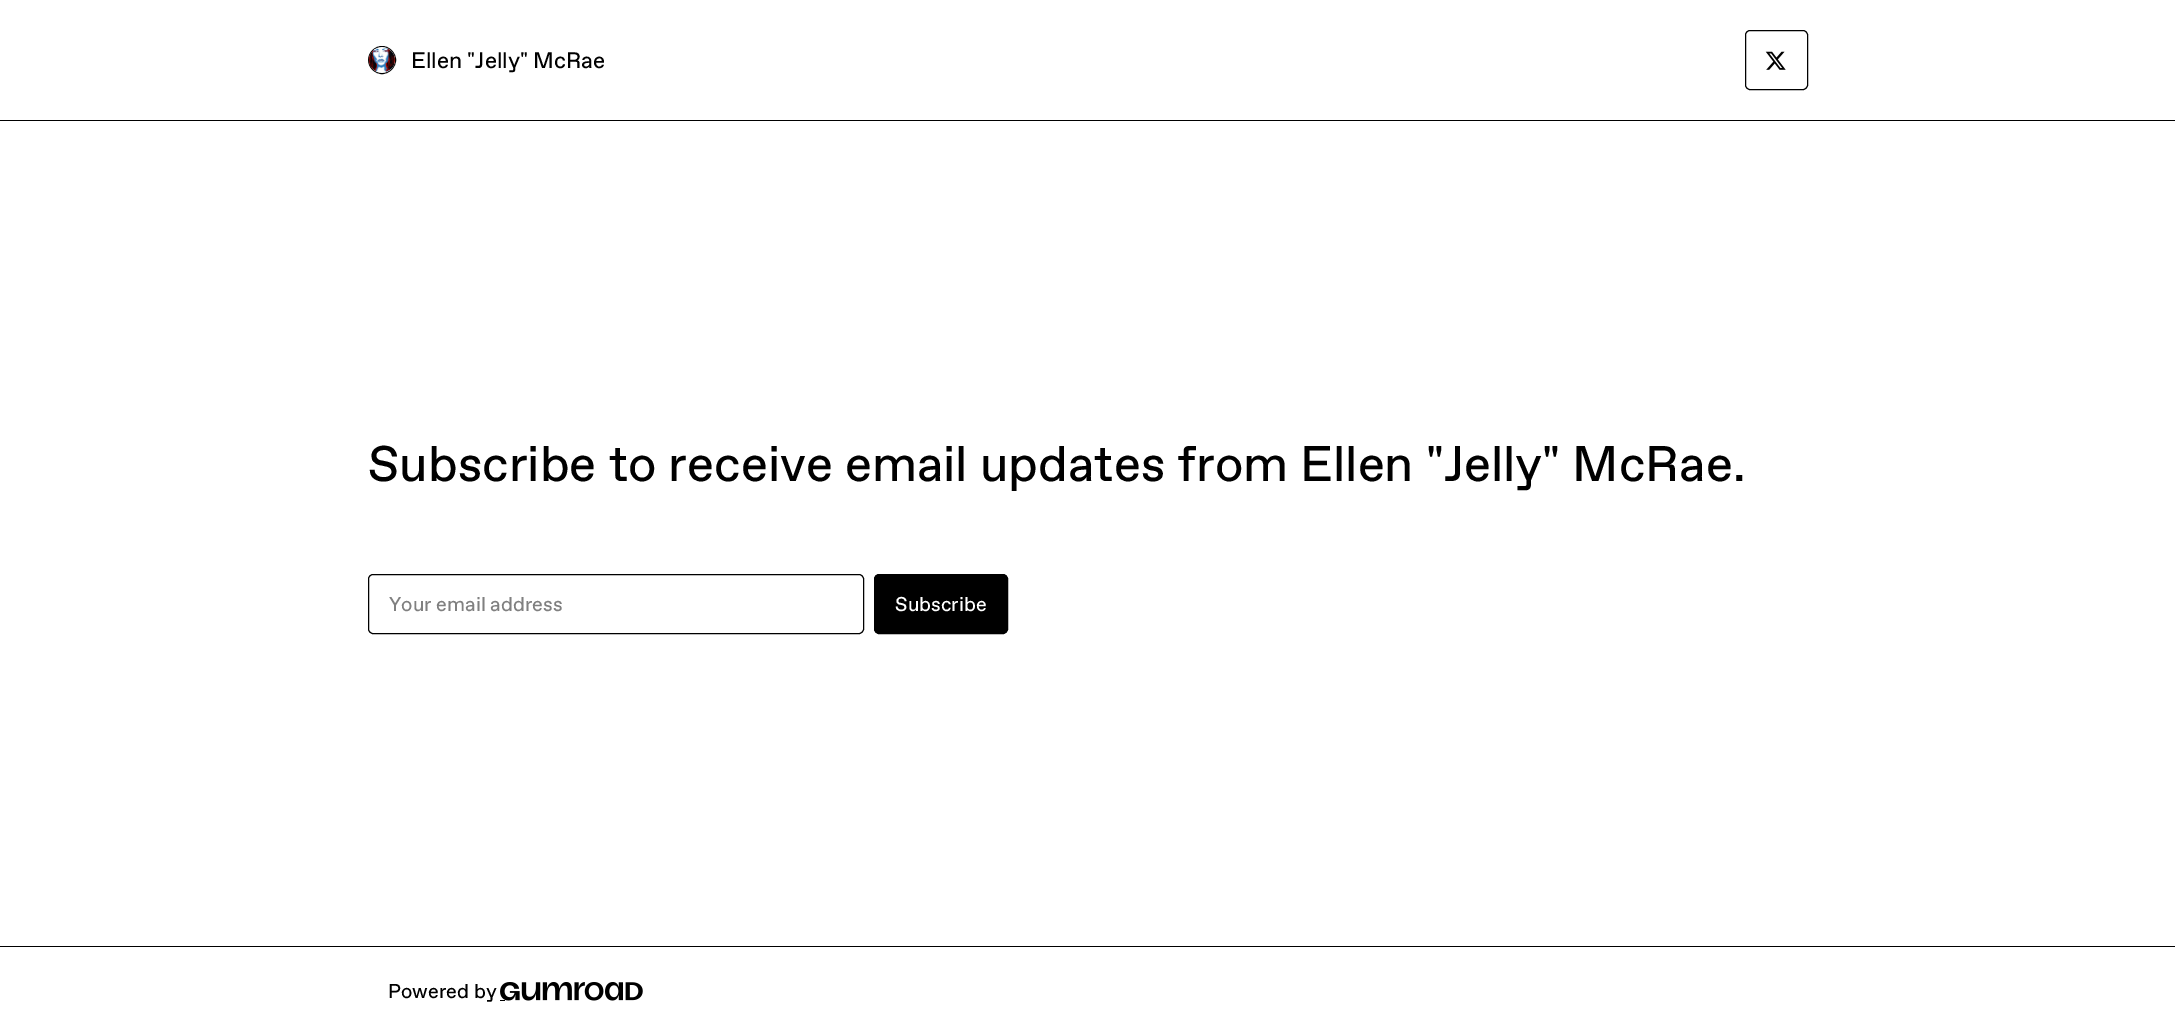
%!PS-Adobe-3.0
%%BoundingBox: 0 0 2175 1035
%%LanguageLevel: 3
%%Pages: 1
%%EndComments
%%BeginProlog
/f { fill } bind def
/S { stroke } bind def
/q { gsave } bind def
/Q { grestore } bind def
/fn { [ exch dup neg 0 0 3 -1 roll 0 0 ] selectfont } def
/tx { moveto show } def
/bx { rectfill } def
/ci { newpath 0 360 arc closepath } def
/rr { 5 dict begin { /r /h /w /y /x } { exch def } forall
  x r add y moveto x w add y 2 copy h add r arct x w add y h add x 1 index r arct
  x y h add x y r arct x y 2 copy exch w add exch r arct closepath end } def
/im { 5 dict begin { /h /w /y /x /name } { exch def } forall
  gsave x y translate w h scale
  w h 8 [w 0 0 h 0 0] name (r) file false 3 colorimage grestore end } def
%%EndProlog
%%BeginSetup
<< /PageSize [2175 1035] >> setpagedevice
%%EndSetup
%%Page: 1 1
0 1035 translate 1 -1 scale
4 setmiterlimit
1 setgray
0 0 2175 1035 bx
0 setgray
0 120 2175 1 bx
382 60 13.5 ci S
(image0.raw) 368 47 27 26 im
/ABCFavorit-Regular 22.5 fn
(Ellen "Jelly" McRae) 411 68 tx
1745.5 30.5 62 59 4.5 rr S
(image1.raw) 1765 51 21 19 im
0 946 2175 1 bx
/ABCFavorit-Regular 50 fn
(Subscribe to receive email updates from Ellen "Jelly" McRae.) 368 481 tx
368.5 574.5 495 59 4.5 rr S
/ABCFavorit-Regular 20 fn
0.502 setgray
(Your email address) 389 611 tx
0 setgray
874.5 574.5 133 59 4.5 rr q f Q
S
1 setgray
(Subscribe) 895 611 tx
0 setgray
(Powered by) 388 998 tx
(image2.raw) 500 982 143 19 im
500 1000 5 1 bx
showpage
%%EOF
